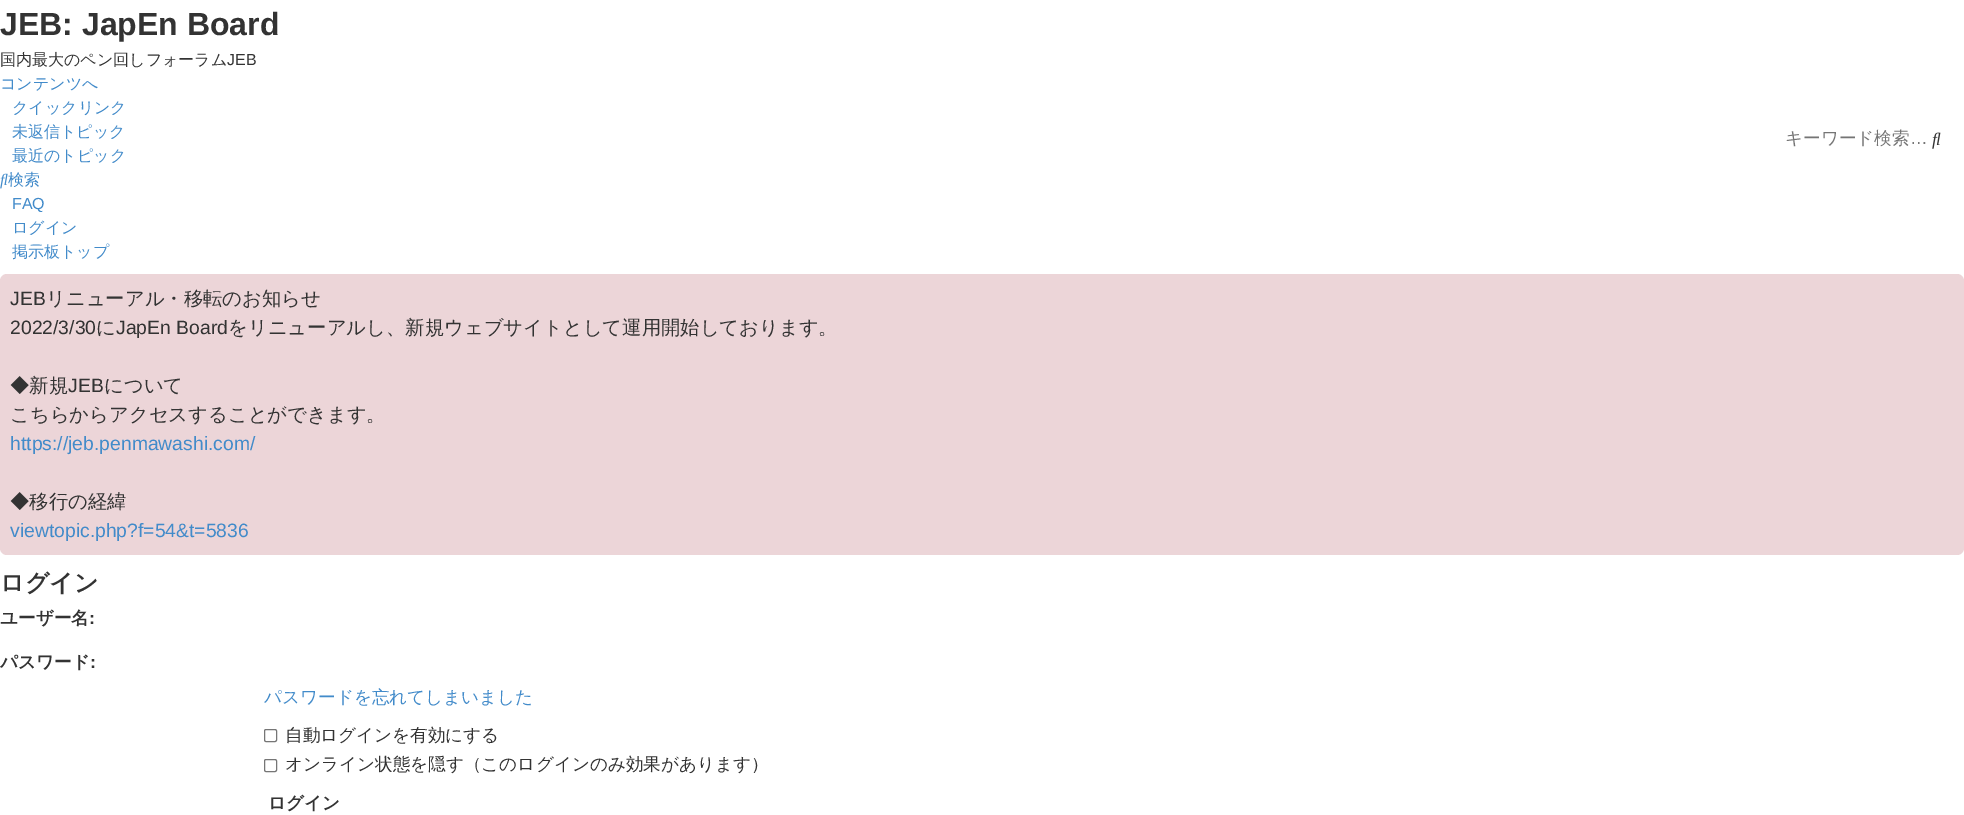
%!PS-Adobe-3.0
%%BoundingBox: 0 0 1964 815
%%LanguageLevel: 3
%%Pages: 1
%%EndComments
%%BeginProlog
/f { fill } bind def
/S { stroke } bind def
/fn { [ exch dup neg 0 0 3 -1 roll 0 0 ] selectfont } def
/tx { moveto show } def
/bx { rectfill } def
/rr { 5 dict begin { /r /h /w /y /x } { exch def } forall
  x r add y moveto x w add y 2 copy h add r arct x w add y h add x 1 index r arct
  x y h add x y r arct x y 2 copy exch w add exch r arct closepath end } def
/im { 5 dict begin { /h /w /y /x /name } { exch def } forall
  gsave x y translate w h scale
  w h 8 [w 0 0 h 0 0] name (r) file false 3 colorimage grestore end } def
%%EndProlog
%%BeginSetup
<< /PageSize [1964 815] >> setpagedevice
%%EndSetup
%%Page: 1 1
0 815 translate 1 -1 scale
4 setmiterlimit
1 setgray
0 0 1964 815 bx
/LiberationSans-Bold 32 fn
0.2 setgray
(JEB: JapEn Board) 0 35 tx
/WenQuanYiZenHei-Medium 16 fn
(国内最大のペン回しフォーラム) 0 65 tx
/LiberationSans-Regular 16 fn
(JEB) 227 65 tx
/WenQuanYiZenHei-Medium 16 fn
0.259 0.545 0.792 setrgbcolor
(コンテンツへ) 0 89 tx
/WenQuanYiZenHei-Medium 17.6 fn
0.459 setgray
(キーワード検索) 1785 144 tx
/LiberationSans-Regular 17.6 fn
(…) 1910 144 tx
(image0.raw) 1932 132 9 17 im
/WenQuanYiZenHei-Medium 16 fn
0.259 0.545 0.792 setrgbcolor
(クイックリンク) 12 113 tx
(未返信トピック) 12 137 tx
(最近のトピック) 12 161 tx
(image1.raw) 0 173 8 16 im
(検索) 8 185 tx
/LiberationSans-Regular 16 fn
(FAQ) 12 209 tx
/WenQuanYiZenHei-Medium 16 fn
(ログイン) 12 233 tx
(掲示板トップ) 12 257 tx
0.925 0.835 0.847 setrgbcolor
0 274 1964 281 7 rr f
/LiberationSans-Regular 19.35 fn
0.2 setgray
(JEB) 10 305 tx
/WenQuanYiZenHei-Medium 19.35 fn
(リニューアル・移転のお知らせ) 46 305 tx
/LiberationSans-Regular 19.35 fn
(2022/3/30) 10 334 tx
/WenQuanYiZenHei-Medium 19.35 fn
(に) 96 334 tx
/LiberationSans-Regular 19.35 fn
(JapEn Board) 116 334 tx
/WenQuanYiZenHei-Medium 19.35 fn
(をリニューアルし、新規ウェブサイトとして運用開始しております。) 228 334 tx
(◆新規) 10 392 tx
/LiberationSans-Regular 19.35 fn
(JEB) 68 392 tx
/WenQuanYiZenHei-Medium 19.35 fn
(について) 104 392 tx
(こちらからアクセスすることができます。) 10 421 tx
/LiberationSans-Regular 19.35 fn
0.259 0.545 0.792 setrgbcolor
(https://jeb.penmawashi.com/) 10 450 tx
/WenQuanYiZenHei-Medium 19.35 fn
0.2 setgray
(◆移行の経緯) 10 508 tx
/LiberationSans-Regular 19.35 fn
0.259 0.545 0.792 setrgbcolor
(viewtopic.php?f=54&t=5836) 10 537 tx
/WenQuanYiZenHei-Bold 24 fn
0.2 setgray
(ログイン) 0 591 tx
/WenQuanYiZenHei-Bold 17.6 fn
(ユーザー名) 0 624 tx
/LiberationSans-Bold 17.6 fn
(:) 89 624 tx
/WenQuanYiZenHei-Bold 17.6 fn
(パスワード) 0 668 tx
/LiberationSans-Bold 17.6 fn
(:) 90 668 tx
/WenQuanYiZenHei-Medium 17.6 fn
0.259 0.545 0.792 setrgbcolor
(パスワードを忘れてしまいました) 264 703 tx
0.463 setgray
264.5 729.5 12 12 1.5 rr S
0.2 setgray
(自動ログインを有効にする) 285 741 tx
0.463 setgray
264.5 759.5 12 12 1.5 rr S
0.2 setgray
(オンライン状態を隠す（このログインのみ効果があります）) 285 770 tx
/WenQuanYiZenHei-Bold 17.6 fn
(ログイン) 268 809 tx
showpage
%%EOF
